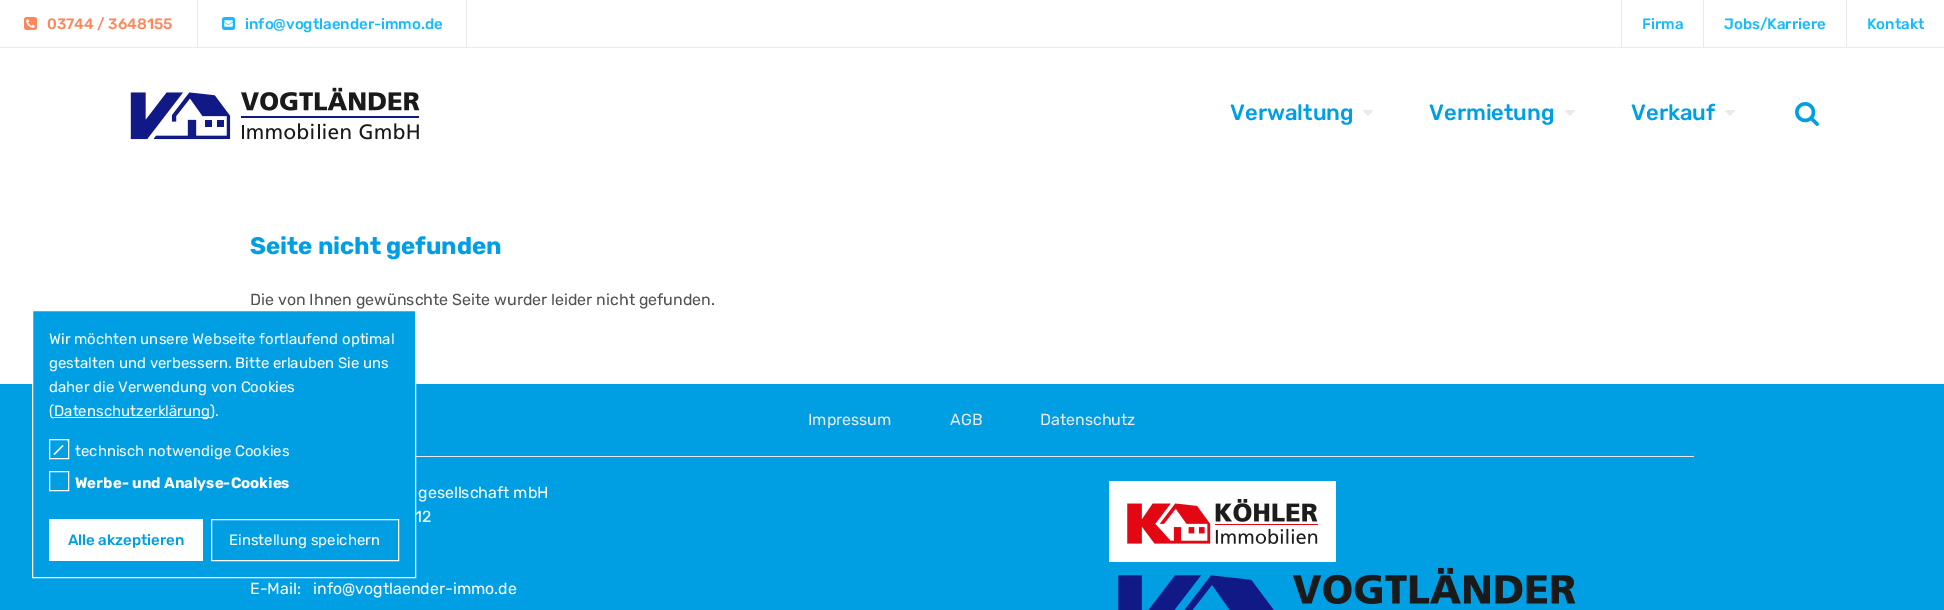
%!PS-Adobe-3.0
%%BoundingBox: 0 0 1944 610
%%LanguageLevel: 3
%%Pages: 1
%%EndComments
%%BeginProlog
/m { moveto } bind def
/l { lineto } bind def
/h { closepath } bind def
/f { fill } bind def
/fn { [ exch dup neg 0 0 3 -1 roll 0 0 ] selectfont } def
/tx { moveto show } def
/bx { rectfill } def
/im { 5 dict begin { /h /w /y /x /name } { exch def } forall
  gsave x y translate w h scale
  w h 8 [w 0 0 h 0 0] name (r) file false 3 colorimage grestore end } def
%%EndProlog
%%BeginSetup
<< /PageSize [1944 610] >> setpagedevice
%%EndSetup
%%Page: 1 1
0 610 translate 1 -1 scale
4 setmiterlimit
0 0.624 0.89 setrgbcolor
0 0 1944 610 bx
1 setgray
0 0 1944 384 bx
0.918 setgray
0 47 1944 1 bx
197 0 1 47 bx
(image0.raw) 24 17 13 13 im
/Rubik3-Light 15 fn
1 0.522 0.353 setrgbcolor
(03744 / 3648155) 47 29 tx
0.918 setgray
466 0 1 47 bx
(image1.raw) 222 17 13 13 im
0.09 0.729 1 setrgbcolor
(info@vogtlaender-immo.de) 245 29 tx
0.918 setgray
1621 0 1 48 bx
0.09 0.729 1 setrgbcolor
(Firma) 1642 29 tx
0.918 setgray
1703 0 1 48 bx
0.09 0.729 1 setrgbcolor
(Jobs/Karriere) 1724 29 tx
0.918 setgray
1846 0 1 48 bx
0.09 0.729 1 setrgbcolor
(Kontakt) 1867 29 tx
(image2.raw) 130 87 290 53 im
/Rubik3-Light 22 fn
0 0.624 0.89 setrgbcolor
(Verwaltung) 1230 120 tx
(image3.raw) 1363 110 10 6 im
(Vermietung) 1429 120 tx
(image3.raw) 1565 110 10 6 im
(Verkauf) 1631 120 tx
(image3.raw) 1725 110 10 6 im
(image4.raw) 1795 102 24 24 im
/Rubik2-Light 24 fn
(Seite nicht gefunden) 250 254 tx
/Rubik-Light 16 fn
0.322 setgray
(Die von Ihnen gewünschte Seite wurder leider nicht gefunden.) 250 305 tx
0 0.624 0.89 setrgbcolor
33 311 382 73 bx
1 setgray
32.5 310.5 383 267 rectstroke
/Rubik-Light 15 fn
(Wir möchten unsere Webseite fortlaufend optimal) 49 344 tx
(gestalten und verbessern. Bitte erlauben Sie uns) 49 368 tx
(daher die Verwendung von Cookies) 49 392 tx
(\() 49 416 tx
54 417 156 1 bx
(Datenschutzerklärung\).) 54 416 tx
49.5 439.5 19 19 rectstroke
67.5 440.5 m 68 441 l 67 441.5 l h 50 458.5 m 49.5 459.5 l 49 459 l h f
62.5 445 m 63.5 446 l 54.5 455 l 53.5 454 l h f
(technisch notwendige Cookies) 75 456 tx
49.5 471.5 19 19 rectstroke
/Rubik2-Light 15 fn
(Werbe- und Analyse-Cookies) 75 488 tx
49 519 154 42 bx
/Rubik3-Light 15 fn
0 0.624 0.89 setrgbcolor
(Alle akzeptieren) 68 545 tx
1 setgray
211.5 519.5 187 41 rectstroke
/Rubik-Light 15 fn
(Einstellung speichern) 229 545 tx
0.918 setgray
416 456 1278 1 bx
/Rubik-Light 16 fn
(Impressum) 808 425 tx
(AGB) 950 425 tx
(Datenschutz) 1040 425 tx
1 setgray
(gesellschaft mbH) 418 498 tx
(12) 415 522 tx
(E-Mail:) 250 594 tx
(info@vogtlaender-immo.de) 313 594 tx
1109 481 227 81 bx
(image5.raw) 1127 499 191 45 im
(image6.raw) 1118 567 458 43 im
showpage
%%EOF
